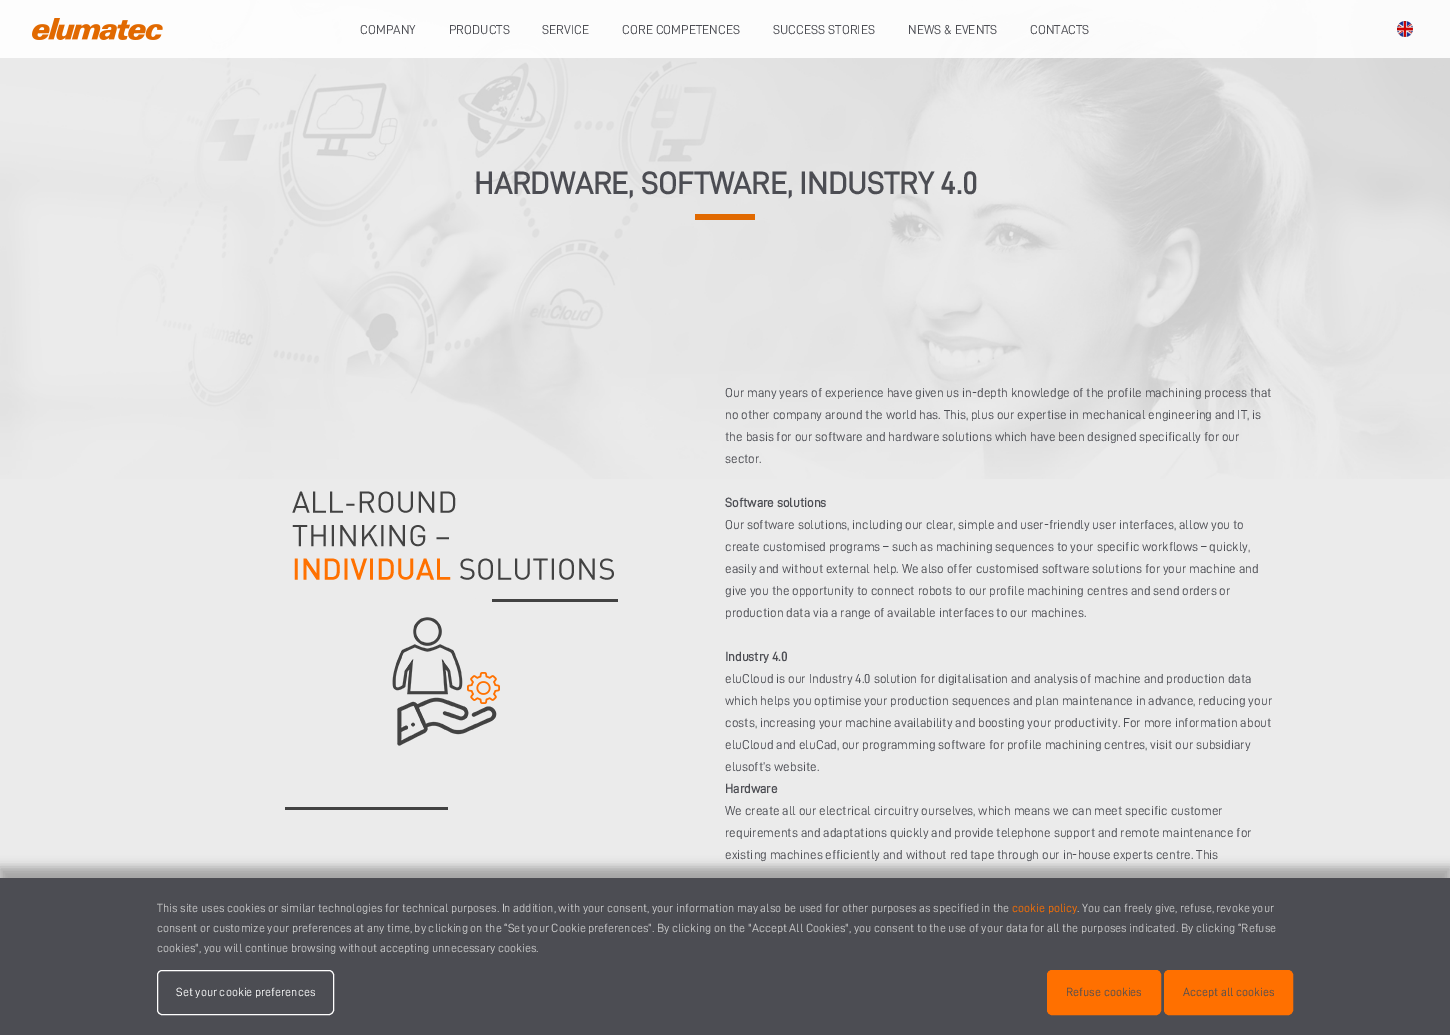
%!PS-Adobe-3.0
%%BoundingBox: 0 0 1450 1035
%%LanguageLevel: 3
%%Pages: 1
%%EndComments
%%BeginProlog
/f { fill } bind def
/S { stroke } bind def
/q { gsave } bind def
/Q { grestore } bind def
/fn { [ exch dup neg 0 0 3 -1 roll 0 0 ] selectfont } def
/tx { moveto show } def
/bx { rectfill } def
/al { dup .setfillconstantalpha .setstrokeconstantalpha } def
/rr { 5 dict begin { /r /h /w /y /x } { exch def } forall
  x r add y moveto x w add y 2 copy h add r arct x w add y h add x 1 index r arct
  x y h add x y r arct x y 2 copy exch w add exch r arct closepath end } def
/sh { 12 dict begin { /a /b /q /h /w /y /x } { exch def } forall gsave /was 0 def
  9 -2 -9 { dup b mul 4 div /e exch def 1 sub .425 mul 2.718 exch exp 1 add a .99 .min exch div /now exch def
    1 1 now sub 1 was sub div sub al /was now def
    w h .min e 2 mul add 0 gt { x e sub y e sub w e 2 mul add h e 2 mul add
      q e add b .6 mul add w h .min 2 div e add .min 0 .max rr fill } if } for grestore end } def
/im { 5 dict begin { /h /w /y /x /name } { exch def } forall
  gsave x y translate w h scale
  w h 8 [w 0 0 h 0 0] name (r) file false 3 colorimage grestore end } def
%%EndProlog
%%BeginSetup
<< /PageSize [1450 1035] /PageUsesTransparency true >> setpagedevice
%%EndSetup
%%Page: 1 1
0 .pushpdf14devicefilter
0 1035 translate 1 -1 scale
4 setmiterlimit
0.922 setgray
0 0 1450 1035 bx
(image2.raw) 0 0 1450 479 im
0.9 al
1 setgray
0 0 1450 58 bx
1 al
(image0.raw) 32 18 131 22 im
/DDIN-Regular 13 fn
0.298 0.302 0.325 setrgbcolor
(COMPANY) 360 34 tx
(PRODUCTS) 449 34 tx
(SERVICE) 542 34 tx
(CORE COMPETENCES) 622 34 tx
(SUCCESS STORIES) 773 34 tx
(NEWS & EVENTS) 908 34 tx
(CONTACTS) 1030 34 tx
(image1.raw) 1397 21 16 16 im
/DDIN-Bold 31.25 fn
(HARDWARE, SOFTWARE, INDUSTRY 4.0) 474 194 tx
0.882 0.412 0 setrgbcolor
695 214 60 6 bx
(image3.raw) 285 491 333 319 im
/DDIN-Regular 13 fn
0.298 0.302 0.325 setrgbcolor
(Our many years of experience have given us in-depth knowledge of the profile machining process that) 725 397 tx
(no other company around the world has. This, plus our expertise in mechanical engineering and IT, is) 725 419 tx
(the basis for our software and hardware solutions which have been designed specifically for our) 725 441 tx
(sector.) 725 463 tx
/DDIN-Bold 13 fn
(Software solutions) 725 507 tx
/DDIN-Regular 13 fn
(Our software solutions, including our clear, simple and user-friendly user interfaces, allow you to) 725 529 tx
(create customised programs – such as machining sequences to your specific workflows – quickly,) 725 551 tx
(easily and without external help. We also offer customised software solutions for your machine and) 725 573 tx
(give you the opportunity to connect robots to our profile machining centres and send orders or) 725 595 tx
(production data via a range of available interfaces to our machines.) 725 617 tx
/DDIN-Bold 13 fn
(Industry 4.0) 725 661 tx
/DDIN-Regular 13 fn
(eluCloud is our Industry 4.0 solution for digitalisation and analysis of machine and production data) 725 683 tx
(which helps you optimise your production sequences and plan maintenance in advance, reducing your) 725 705 tx
(costs, increasing your machine availability and boosting your productivity. For more information about) 725 727 tx
(eluCloud and eluCad, our programming software for profile machining centres, visit our subsidiary) 725 749 tx
(elusoft’s website.) 725 771 tx
/DDIN-Bold 13 fn
(Hardware) 725 793 tx
/DDIN-Regular 13 fn
(We create all our electrical circuitry ourselves, which means we can meet specific customer) 725 815 tx
(requirements and adaptations quickly and provide telephone support and remote maintenance for) 725 837 tx
(existing machines efficiently and without red tape through our in-house experts centre. This) 725 859 tx
0 setgray
-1 867 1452 159 0 5 0.3 sh
0.298 0.302 0.325 setrgbcolor
0 878 1450 157 bx
/DDIN-Regular 12 fn
0.8 setgray
(This site uses cookies or similar technologies for technical purposes. In addition, with your consent, your information may also be used for other purposes as specified in the) 157 912 tx
1 0.439 0 setrgbcolor
(cookie policy) 1012 912 tx
0.8 setgray
(. You can freely give, refuse, revoke your) 1077 912 tx
(consent or customize your preferences at any time, by clicking on the “Set your Cookie preferences”. By clicking on the "Accept All Cookies", you consent to the use of your data for all the purposes indicated. By clicking “Refuse) 157 932 tx
(cookies", you will continue browsing without accepting unnecessary cookies.) 157 952 tx
1 setgray
157.5 970.5 176 44 4.5 rr S
(Set your cookie preferences) 176 996 tx
1 0.439 0 setrgbcolor
1047.5 970.5 113 44 4.5 rr q f Q
S
0.298 0.302 0.325 setrgbcolor
(Refuse cookies) 1066 996 tx
1 0.439 0 setrgbcolor
1164.5 970.5 128 44 4.5 rr q f Q
S
0.298 0.302 0.325 setrgbcolor
(Accept all cookies) 1183 996 tx
.poppdf14devicefilter showpage
%%EOF
